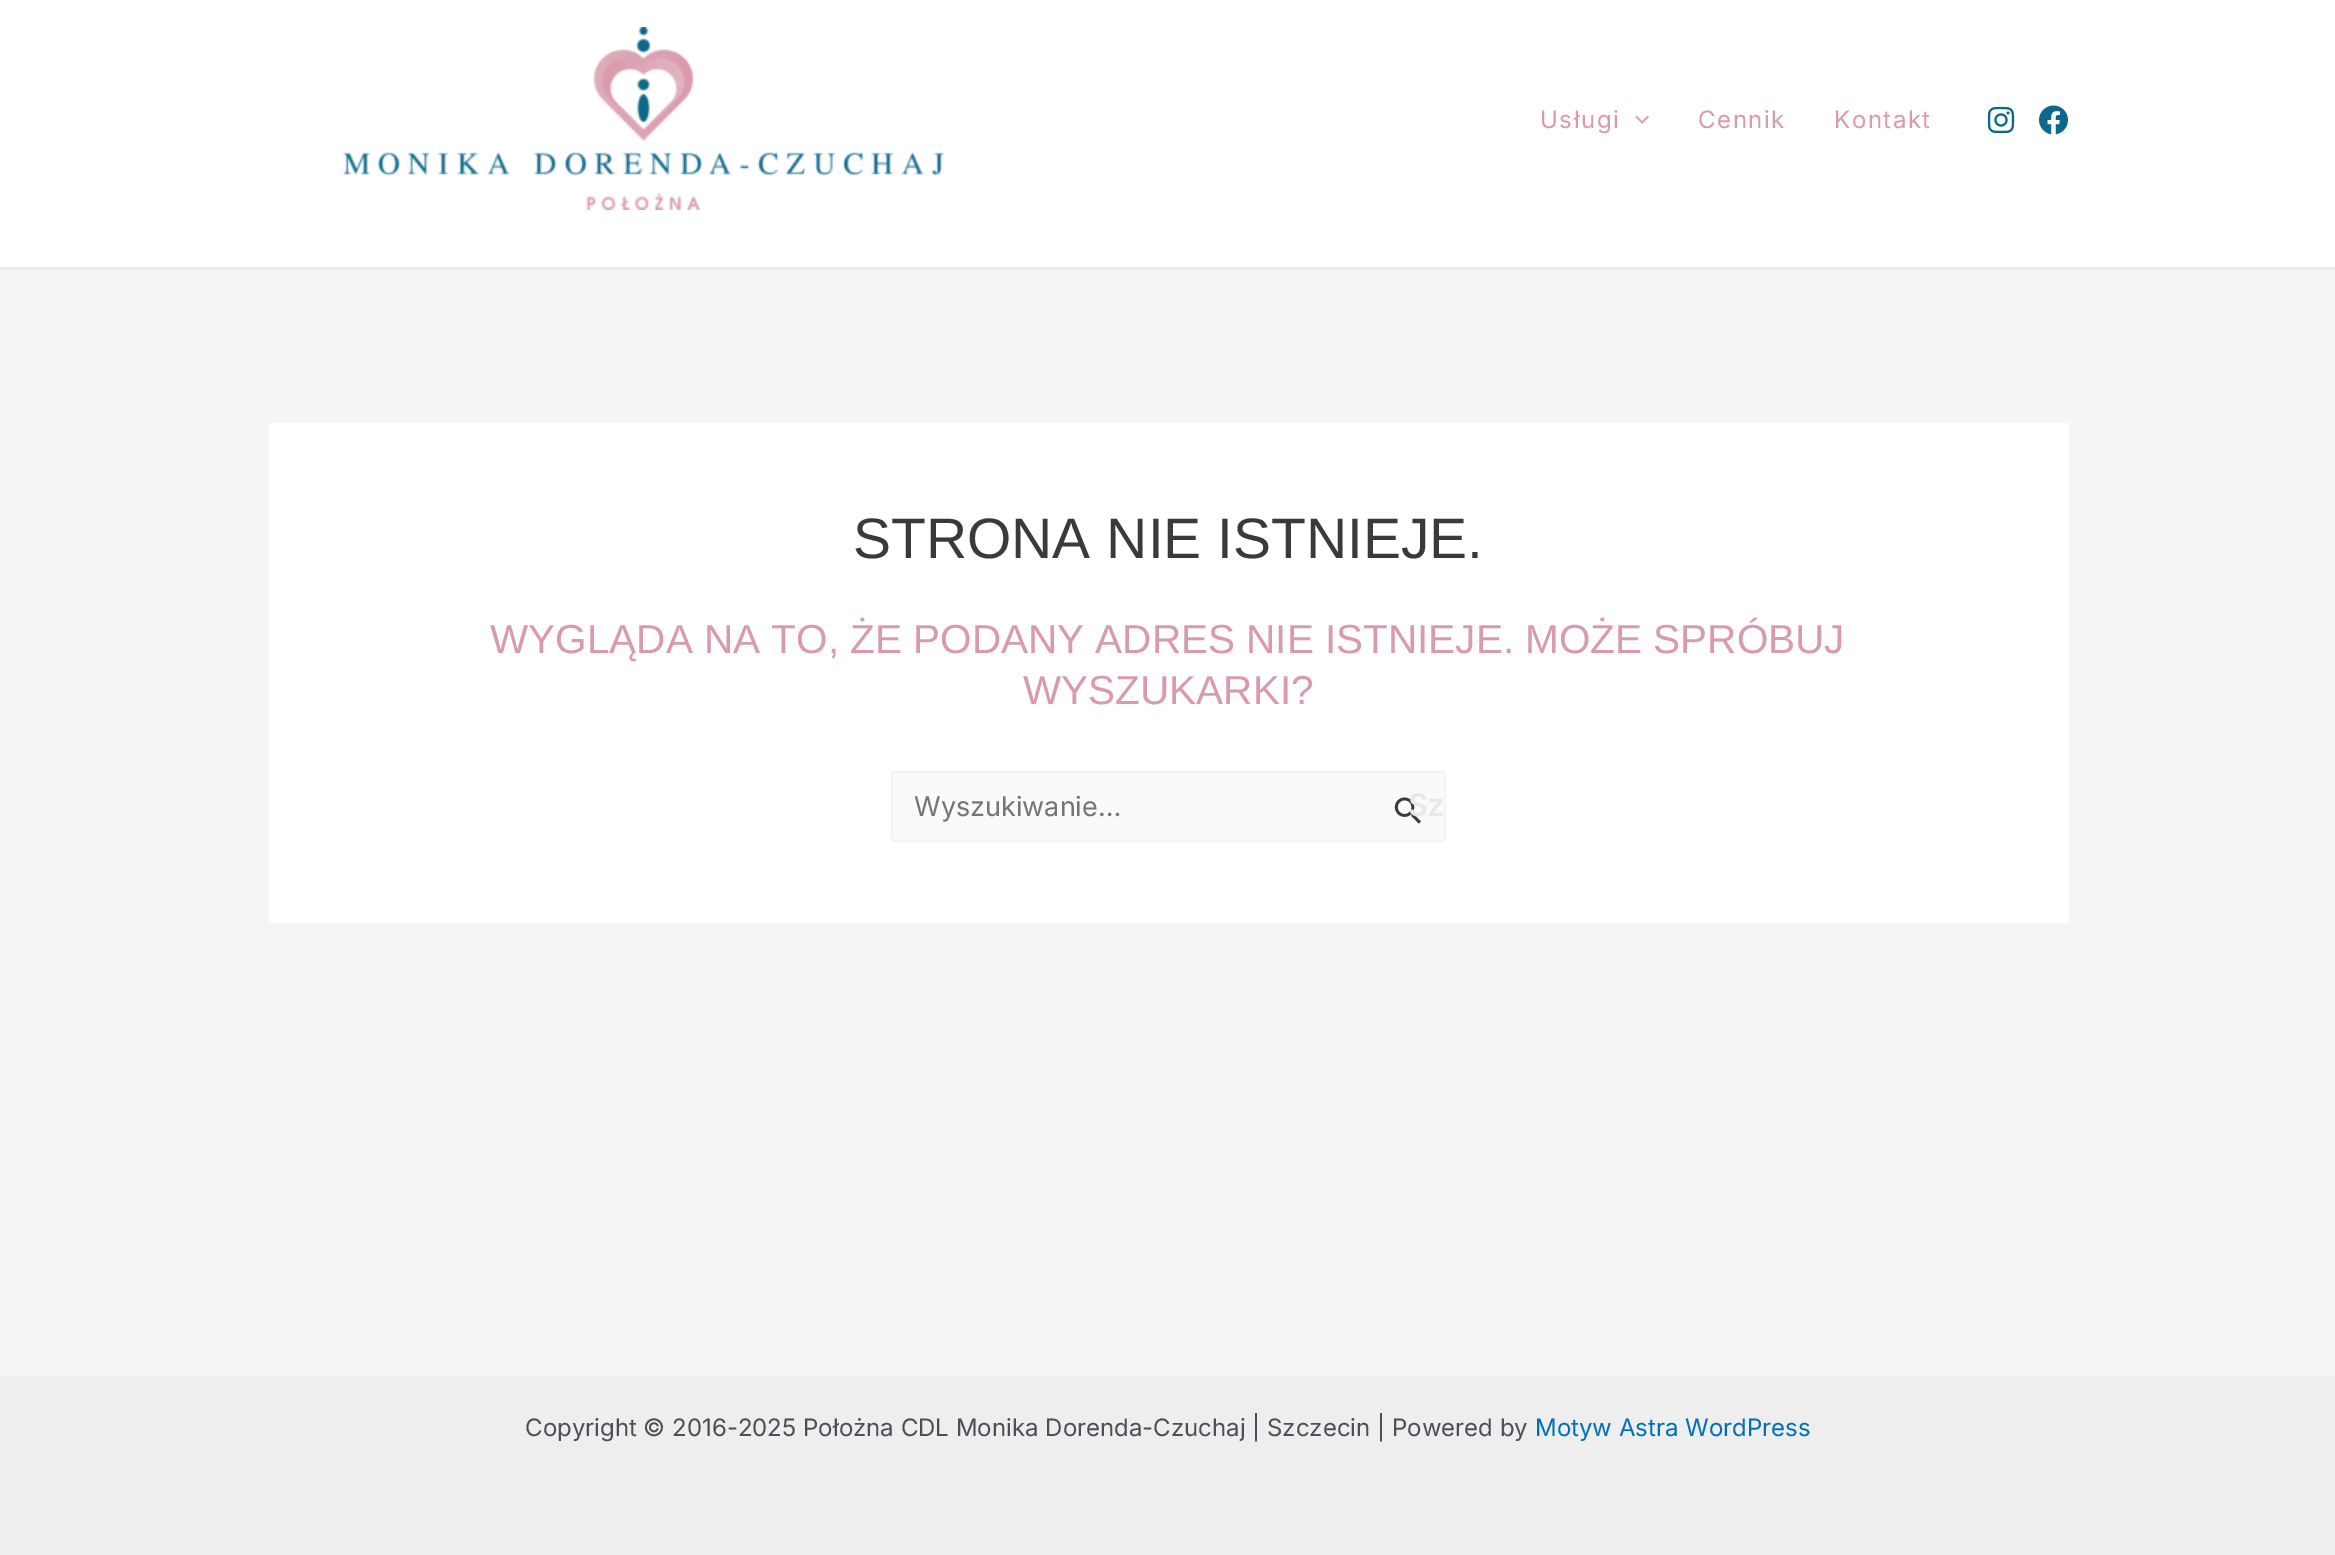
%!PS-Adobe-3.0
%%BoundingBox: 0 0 2335 1555
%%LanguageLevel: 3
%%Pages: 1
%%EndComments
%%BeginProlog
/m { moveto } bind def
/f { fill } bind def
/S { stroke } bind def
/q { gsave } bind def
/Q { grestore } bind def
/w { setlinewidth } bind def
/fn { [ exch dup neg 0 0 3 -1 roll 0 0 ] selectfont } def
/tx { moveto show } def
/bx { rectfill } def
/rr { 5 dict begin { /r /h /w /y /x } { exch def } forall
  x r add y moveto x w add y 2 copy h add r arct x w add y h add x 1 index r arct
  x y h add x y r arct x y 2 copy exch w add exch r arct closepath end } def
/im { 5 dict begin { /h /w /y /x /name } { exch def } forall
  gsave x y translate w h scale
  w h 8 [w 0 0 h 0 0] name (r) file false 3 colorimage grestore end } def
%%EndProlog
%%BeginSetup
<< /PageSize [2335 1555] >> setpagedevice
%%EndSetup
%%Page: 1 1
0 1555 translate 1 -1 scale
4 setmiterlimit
0.961 setgray
0 0 2335 1555 bx
1 setgray
0 0 2335 267 bx
0.918 setgray
0 267 2335 3 bx
(image0.raw) 343 27 601 183 im
/Inter-Regular 24 fn
0.851 0.604 0.671 setrgbcolor
1540 128 m 1.5 0 (Usługi) ashow
(image1.raw) 1635 115 14 9 im
1698 128 m 1.5 0 (Cennik) ashow
1834 128 m 1.5 0 (Kontakt) ashow
(image2.raw) 1987 106 28 28 im
(image3.raw) 2039 105 29 30 im
1 setgray
269 423 1800 500 bx
/LiberationSans-Regular 57 fn
0.227 setgray
(STRONA NIE ISTNIEJE.) 853 558 tx
/LiberationSans-Regular 40.5 fn
0.851 0.604 0.671 setrgbcolor
(WYGLĄDA NA TO, ŻE PODANY ADRES NIE ISTNIEJE. MOŻE SPRÓBUJ) 490 653 tx
(WYSZUKARKI?) 1023 704 tx
0.98 setgray
892 772 553 69 2 rr q f Q
0.949 0.961 0.969 setrgbcolor
2 w
S
/Inter-Regular 27 fn
0.459 setgray
(Wyszukiwanie…) 914 816 tx
(image4.raw) 1394 797 27 27 im
/Inter-Bold 30 fn
0.91 setgray
(Sz) 1408 816 tx
0.933 setgray
0 1376 2335 179 bx
0.949 0.961 0.969 setrgbcolor
0 1374 2335 2 bx
/Inter-Regular 24 fn
0.294 0.31 0.345 setrgbcolor
(Copyright © 2016-2025 Położna CDL Monika Dorenda-Czuchaj | Szczecin | Powered by) 525 1436 tx
0.004 0.439 0.725 setrgbcolor
(Motyw Astra WordPress) 1535 1436 tx
showpage
%%EOF
